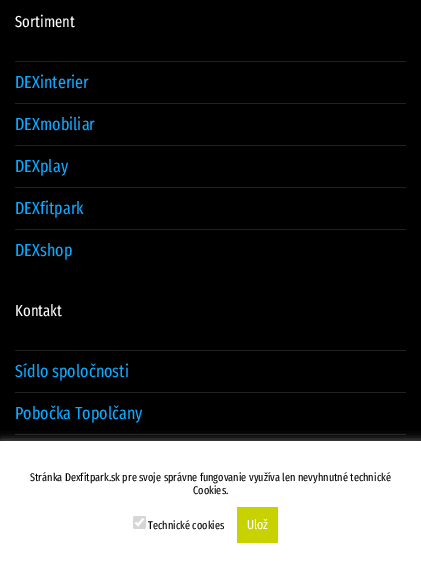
%!PS-Adobe-3.0
%%BoundingBox: 0 0 421 583
%%LanguageLevel: 3
%%Pages: 1
%%EndComments
%%BeginProlog
/m { moveto } bind def
/l { lineto } bind def
/f { fill } bind def
/S { stroke } bind def
/w { setlinewidth } bind def
/fn { [ exch dup neg 0 0 3 -1 roll 0 0 ] selectfont } def
/tx { moveto show } def
/bx { rectfill } def
/al { dup .setfillconstantalpha .setstrokeconstantalpha } def
/rr { 5 dict begin { /r /h /w /y /x } { exch def } forall
  x r add y moveto x w add y 2 copy h add r arct x w add y h add x 1 index r arct
  x y h add x y r arct x y 2 copy exch w add exch r arct closepath end } def
/sh { 12 dict begin { /a /b /q /h /w /y /x } { exch def } forall gsave /was 0 def
  9 -2 -9 { dup b mul 4 div /e exch def 1 sub .425 mul 2.718 exch exp 1 add a .99 .min exch div /now exch def
    1 1 now sub 1 was sub div sub al /was now def
    w h .min e 2 mul add 0 gt { x e sub y e sub w e 2 mul add h e 2 mul add
      q e add b .6 mul add w h .min 2 div e add .min 0 .max rr fill } if } for grestore end } def
%%EndProlog
%%BeginSetup
<< /PageSize [421 583] /PageUsesTransparency true >> setpagedevice
%%EndSetup
%%Page: 1 1
0 .pushpdf14devicefilter
0 583 translate 1 -1 scale
4 setmiterlimit
0 setgray
0 0 421 583 bx
/FiraSansExtraCondensed-Regular 16 fn
1 setgray
(Sortiment) 15 27 tx
0.129 setgray
15 61 391 1 bx
/FiraSansExtraCondensed-Regular 17.5 fn
0.059 0.659 1 setrgbcolor
(DEXinterier) 15 88 tx
0.129 setgray
15 103 391 1 bx
0.059 0.659 1 setrgbcolor
(DEXmobiliar) 15 130 tx
0.129 setgray
15 145 391 1 bx
0.059 0.659 1 setrgbcolor
(DEXplay) 15 172 tx
0.129 setgray
15 187 391 1 bx
0.059 0.659 1 setrgbcolor
(DEXfitpark) 15 214 tx
0.129 setgray
15 229 391 1 bx
0.059 0.659 1 setrgbcolor
(DEXshop) 15 256 tx
/FiraSansExtraCondensed-Regular 16 fn
1 setgray
(Kontakt) 15 316 tx
0.129 setgray
15 350 391 1 bx
/FiraSansExtraCondensed-Regular 17.5 fn
0.059 0.659 1 setrgbcolor
(Sídlo spoločnosti) 15 377 tx
0.129 setgray
15 392 391 1 bx
0.059 0.659 1 setrgbcolor
(Pobočka Topolčany) 15 419 tx
0.129 setgray
15 434 391 1 bx
0.58 setgray
1 442 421 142 0 5 1 sh
1 setgray
0 441 421 142 bx
/FiraSansExtraCondensed-Regular 11.2 fn
0 setgray
(Stránka Dexfitpark.sk pre svoje správne fungovanie využíva len nevyhnutné technické) 30 481 tx
(Cookies.) 193 494 tx
0.839 setgray
133 516 13 13 2 rr f
1 setgray
2.1 w
135.5 522.5 m 138 525 l 143.5 518.5 l S
0 setgray
(Technické cookies) 148 529 tx
0.784 0.824 0 setrgbcolor
237 507 41 36 bx
/FiraSansExtraCondensed-Regular 13 fn
1 setgray
(Ulož) 247 529 tx
.poppdf14devicefilter showpage
%%EOF
